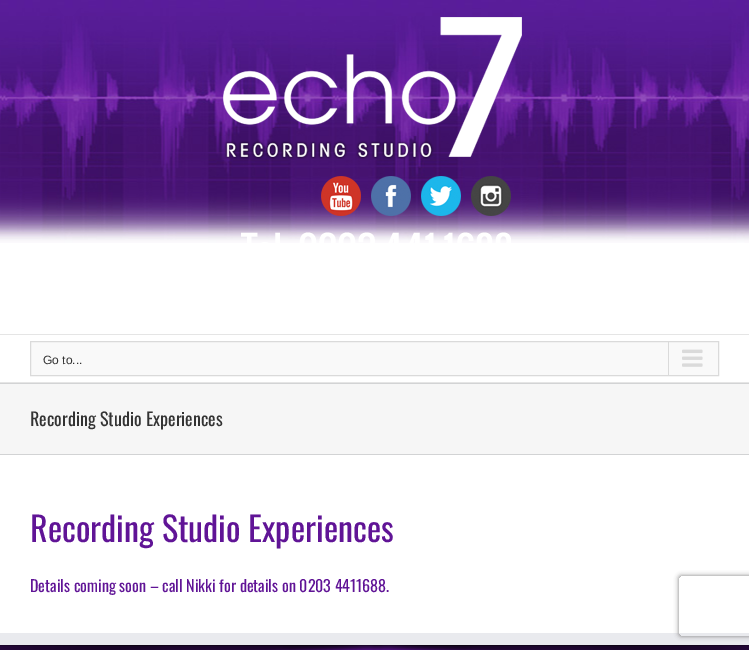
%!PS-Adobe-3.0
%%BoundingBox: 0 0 749 650
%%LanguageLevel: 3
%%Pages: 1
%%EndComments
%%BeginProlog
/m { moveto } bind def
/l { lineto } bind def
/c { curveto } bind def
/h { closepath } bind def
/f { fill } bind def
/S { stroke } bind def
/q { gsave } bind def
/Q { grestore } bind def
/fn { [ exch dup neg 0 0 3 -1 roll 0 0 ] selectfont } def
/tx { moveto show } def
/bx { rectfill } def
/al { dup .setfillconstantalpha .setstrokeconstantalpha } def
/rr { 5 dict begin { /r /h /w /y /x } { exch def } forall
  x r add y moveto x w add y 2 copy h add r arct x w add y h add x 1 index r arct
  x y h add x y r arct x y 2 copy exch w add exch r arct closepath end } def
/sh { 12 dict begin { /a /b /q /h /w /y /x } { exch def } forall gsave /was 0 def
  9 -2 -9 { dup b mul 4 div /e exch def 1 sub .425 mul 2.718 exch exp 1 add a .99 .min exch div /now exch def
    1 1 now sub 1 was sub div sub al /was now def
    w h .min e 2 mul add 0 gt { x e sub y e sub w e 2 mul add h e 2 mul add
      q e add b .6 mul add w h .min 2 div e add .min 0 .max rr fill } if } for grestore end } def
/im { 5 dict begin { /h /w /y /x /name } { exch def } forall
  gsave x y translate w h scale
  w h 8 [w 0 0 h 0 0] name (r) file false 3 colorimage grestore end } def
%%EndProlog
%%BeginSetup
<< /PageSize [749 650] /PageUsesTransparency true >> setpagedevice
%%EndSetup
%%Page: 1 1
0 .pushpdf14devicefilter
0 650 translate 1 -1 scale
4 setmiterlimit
0.965 setgray
0 0 749 650 bx
1 setgray
0 243 749 91 bx
(image0.raw) 0 0 749 243 im
0.898 setgray
0 334 749 1 bx
(image1.raw) 223 17 299 142 im
(image2.raw) 241 176 270 67 im
1 setgray
0 335 749 47 bx
0.898 setgray
0 382 749 1 bx
0.976 setgray
30.5 341.5 m 718.5 341.5 l 718.5 375.5 l 30.5 375.5 l h q f Q
0.855 setgray
S
/LiberationSans-Regular 12 fn
0.2 setgray
(Go to...) 43 364 tx
0.855 setgray
668 342 1 33 bx
(image3.raw) 682 349 21 18 im
0.824 0.827 0.831 setrgbcolor
0 383 749 1 bx
0 454 749 1 bx
/Oswald-Regular 18 fn
0.2 setgray
(Recording Studio Experiences) 30 426 tx
1 setgray
0 455 749 178 bx
/Oswald-Regular 34 fn
0.376 0.078 0.588 setrgbcolor
(Recording Studio Experiences) 30 542 tx
/Oswald-Regular 16 fn
(Details coming soon – call Nikki for details on 0203 4411688.) 30 592 tx
0 645 749 5 bx
(image4.raw) 0 645 749 5 im
0.914 0.918 0.933 setrgbcolor
0 633 749 12 bx
q
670 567 m 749 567 l 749 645 l 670 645 l h 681 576 m 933 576 l 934 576 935 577 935 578 c 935 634 l 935 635 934 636 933 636 c 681 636 l 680 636 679 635 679 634 c 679 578 l 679 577 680 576 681 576 c h eoclip newpath
0.502 setgray
679 576 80 60 2 2.5 1 sh
Q
.poppdf14devicefilter showpage
%%EOF
